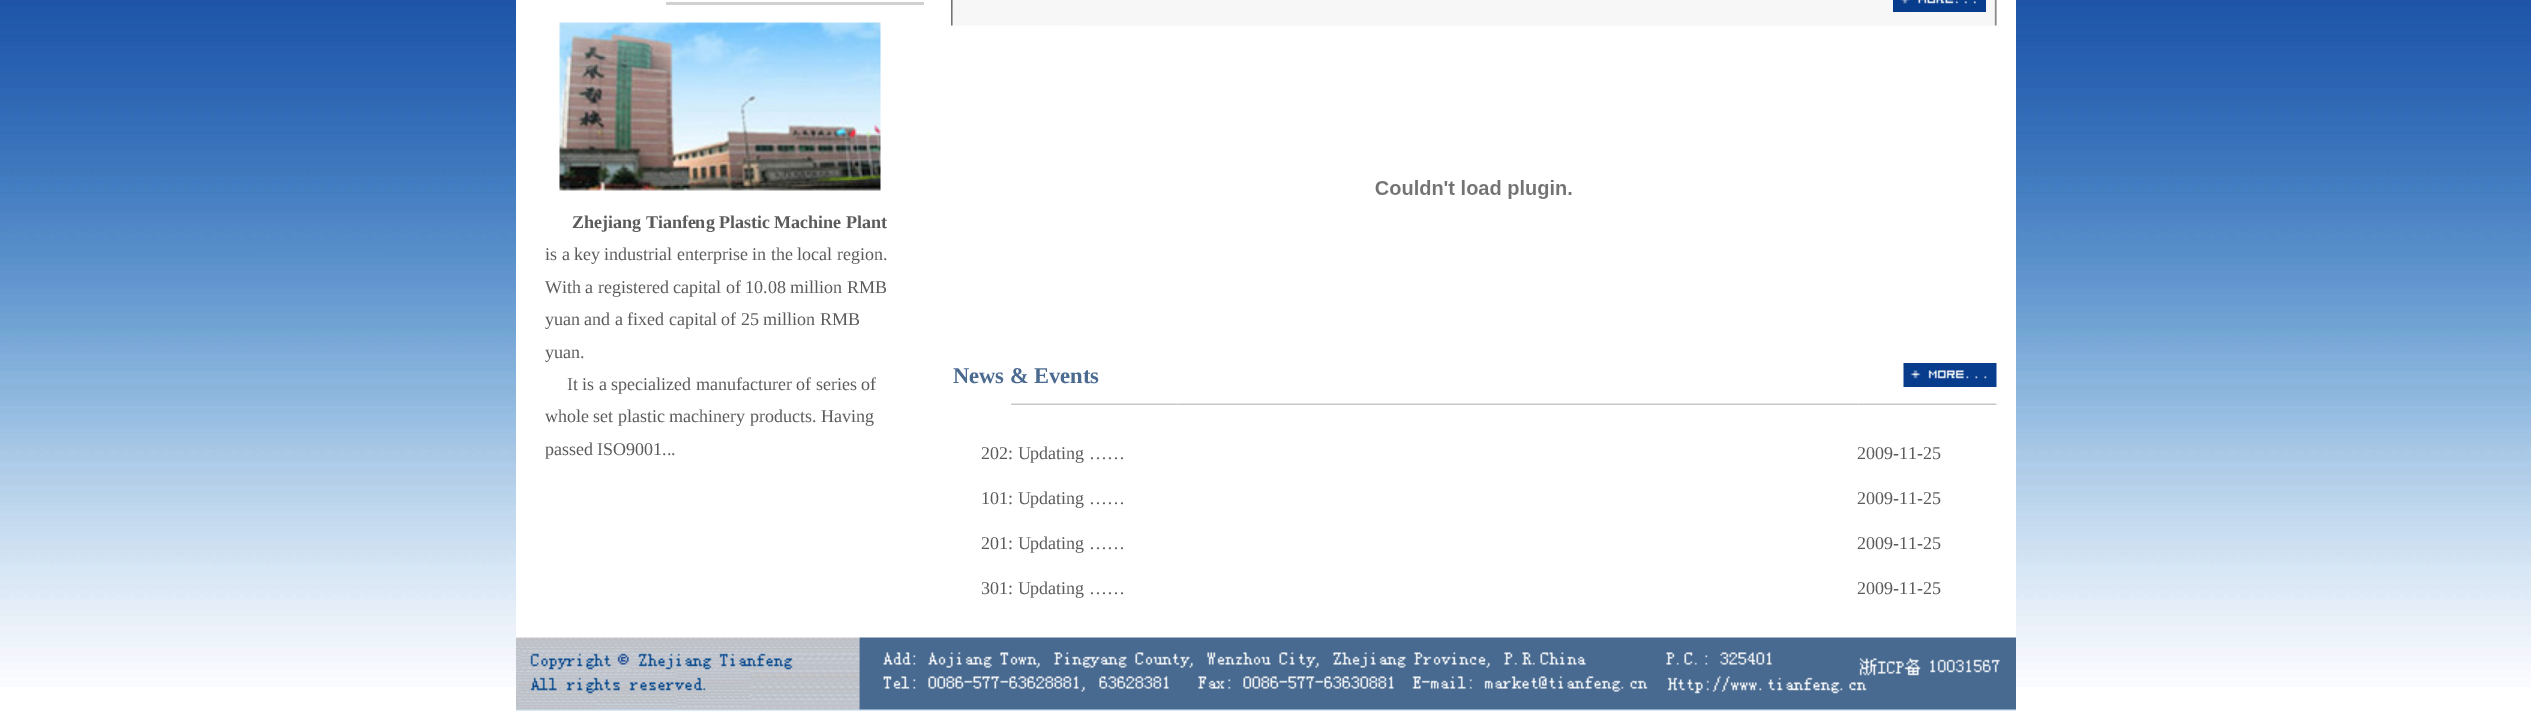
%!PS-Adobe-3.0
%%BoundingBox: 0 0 2531 711
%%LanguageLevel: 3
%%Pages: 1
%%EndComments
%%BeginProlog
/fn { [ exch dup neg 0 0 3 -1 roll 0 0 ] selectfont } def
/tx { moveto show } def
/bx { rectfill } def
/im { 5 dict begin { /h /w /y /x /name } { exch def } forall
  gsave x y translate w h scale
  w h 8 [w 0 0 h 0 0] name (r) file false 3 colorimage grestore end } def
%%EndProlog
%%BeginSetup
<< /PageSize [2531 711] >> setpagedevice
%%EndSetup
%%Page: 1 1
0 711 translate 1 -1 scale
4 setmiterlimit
1 setgray
0 0 2531 711 bx
(image0.raw) 0 0 2531 687 im
516 0 1500 638 bx
0.82 setgray
666 2 258 3 bx
(image1.raw) 559 22 322 169 im
/LiberationSerif-Bold 18 fn
0.357 setgray
(Zhejiang Tianfeng Plastic Machine Plant) 572 228 tx
/LiberationSerif-Regular 18 fn
(is a key industrial enterprise in the local region.) 545 260 tx
(With a registered capital of 10.08 million RMB) 545 293 tx
(yuan and a fixed capital of 25 million RMB) 545 325 tx
(yuan.) 545 358 tx
(It is a specialized manufacturer of series of) 567 390 tx
(whole set plastic machinery products. Having) 545 422 tx
(passed ISO9001...) 545 455 tx
(image2.raw) 951 0 132 26 im
0.969 setgray
1083 0 903 26 bx
(image3.raw) 1893 0 93 12 im
(image4.raw) 1986 0 11 26 im
(image5.raw) 1375 180 197 19 im
(image6.raw) 1010 403 168 2 im
/LiberationSerif-Bold 22.5 fn
0.29 0.416 0.565 setrgbcolor
(News & Events) 953 383 tx
(image9.raw) 1177 403 682 2 im
(image7.raw) 1858 403 139 2 im
(image8.raw) 1903 363 94 24 im
/LiberationSerif-Regular 18 fn
0.357 setgray
(202: Updating ……) 981 459 tx
(2009-11-25) 1857 459 tx
(101: Updating ……) 981 504 tx
(2009-11-25) 1857 504 tx
(201: Updating ……) 981 549 tx
(2009-11-25) 1857 549 tx
(301: Updating ……) 981 594 tx
(2009-11-25) 1857 594 tx
(image10.raw) 516 637 1500 74 im
showpage
%%EOF
